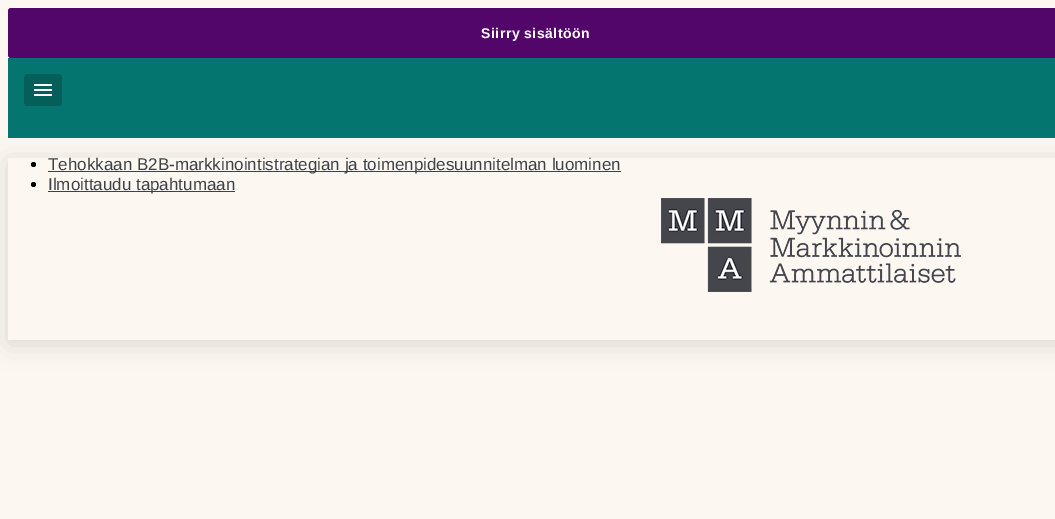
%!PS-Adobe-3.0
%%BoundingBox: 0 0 1055 519
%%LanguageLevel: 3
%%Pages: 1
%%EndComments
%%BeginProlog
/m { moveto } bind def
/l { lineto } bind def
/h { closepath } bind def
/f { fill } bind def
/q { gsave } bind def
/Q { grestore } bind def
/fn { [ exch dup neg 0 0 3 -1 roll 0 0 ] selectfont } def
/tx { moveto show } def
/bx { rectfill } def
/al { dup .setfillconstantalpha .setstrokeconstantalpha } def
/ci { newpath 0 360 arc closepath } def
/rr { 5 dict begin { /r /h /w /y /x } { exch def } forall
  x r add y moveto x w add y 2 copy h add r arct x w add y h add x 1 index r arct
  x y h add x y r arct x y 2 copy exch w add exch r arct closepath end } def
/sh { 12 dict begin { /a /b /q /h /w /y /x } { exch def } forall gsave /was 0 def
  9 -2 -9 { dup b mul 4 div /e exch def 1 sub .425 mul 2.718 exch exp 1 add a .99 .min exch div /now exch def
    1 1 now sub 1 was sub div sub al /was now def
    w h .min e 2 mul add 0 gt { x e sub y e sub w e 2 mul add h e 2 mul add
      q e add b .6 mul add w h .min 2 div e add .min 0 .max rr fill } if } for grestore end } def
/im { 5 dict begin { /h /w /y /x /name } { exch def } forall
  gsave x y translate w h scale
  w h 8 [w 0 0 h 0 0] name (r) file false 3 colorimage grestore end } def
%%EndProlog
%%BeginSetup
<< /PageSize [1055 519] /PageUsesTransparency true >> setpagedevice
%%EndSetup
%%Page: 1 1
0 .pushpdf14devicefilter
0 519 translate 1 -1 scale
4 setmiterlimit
0.988 0.969 0.945 setrgbcolor
0 0 1055 519 bx
0.325 0.024 0.412 setrgbcolor
8 8 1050 50 3 rr f
/LiberationSans-Bold 14 fn
1 setgray
481 38 m 0.5 0 (Siirry sisältöön) ashow
0.02 0.459 0.435 setrgbcolor
8 58 1047 80 bx
0.016 0.369 0.349 setrgbcolor
24 74 38 32 4 rr f
1 setgray
34 84 18 2 1 rr f
34 89 18 2 1 rr f
34 94 18 2 1 rr f
q
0 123 m 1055 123 l 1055 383 l 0 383 l h 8 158 m 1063 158 l 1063 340 l 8 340 l h eoclip newpath
0.267 0.275 0.302 setrgbcolor
8 162 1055 182 0 12.5 0.2 sh
Q
(image0.raw) 661 198 300 94 im
0 setgray
33.5 164.5 2.5 ci f
0.235 0.255 0.275 setrgbcolor
48 171 573 1 bx
/LiberationSans-Regular 17 fn
(Tehokkaan B2B-markkinointistrategian ja toimenpidesuunnitelman luominen) 48 170 tx
0 setgray
33.5 184.5 2.5 ci f
0.235 0.255 0.275 setrgbcolor
48 191 187 1 bx
(Ilmoittaudu tapahtumaan) 48 190 tx
.poppdf14devicefilter showpage
%%EOF
